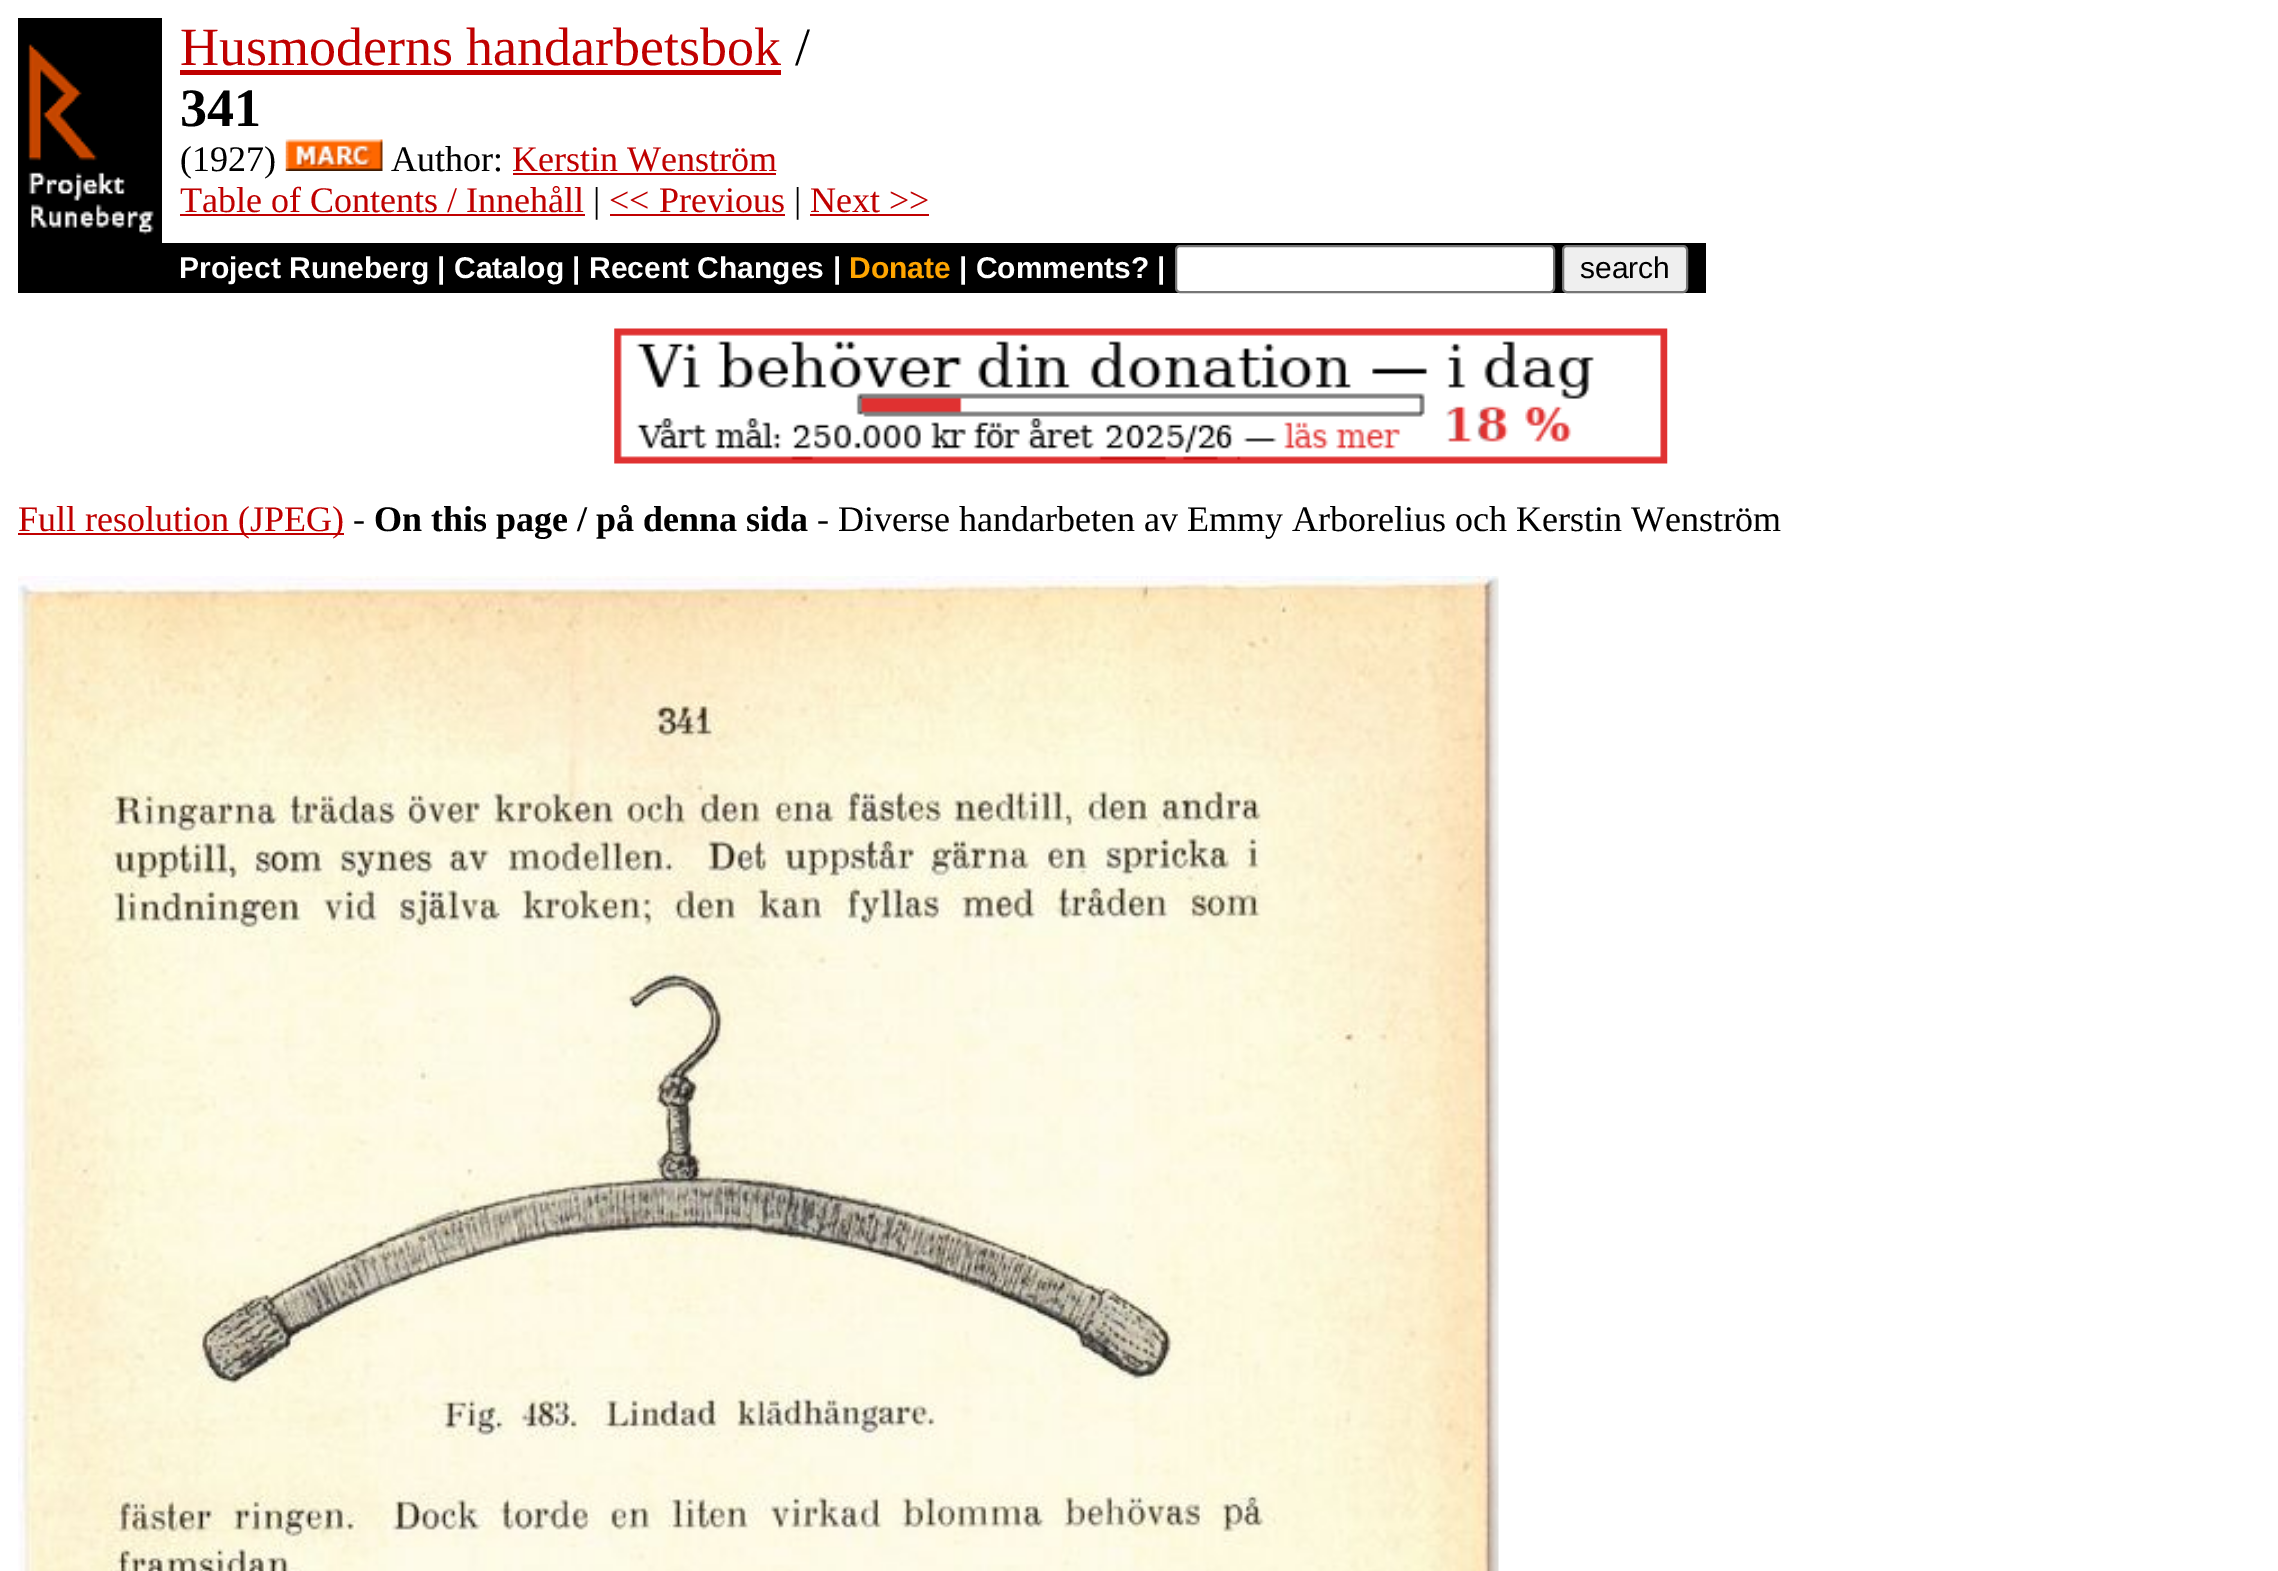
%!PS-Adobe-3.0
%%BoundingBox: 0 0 2278 1571
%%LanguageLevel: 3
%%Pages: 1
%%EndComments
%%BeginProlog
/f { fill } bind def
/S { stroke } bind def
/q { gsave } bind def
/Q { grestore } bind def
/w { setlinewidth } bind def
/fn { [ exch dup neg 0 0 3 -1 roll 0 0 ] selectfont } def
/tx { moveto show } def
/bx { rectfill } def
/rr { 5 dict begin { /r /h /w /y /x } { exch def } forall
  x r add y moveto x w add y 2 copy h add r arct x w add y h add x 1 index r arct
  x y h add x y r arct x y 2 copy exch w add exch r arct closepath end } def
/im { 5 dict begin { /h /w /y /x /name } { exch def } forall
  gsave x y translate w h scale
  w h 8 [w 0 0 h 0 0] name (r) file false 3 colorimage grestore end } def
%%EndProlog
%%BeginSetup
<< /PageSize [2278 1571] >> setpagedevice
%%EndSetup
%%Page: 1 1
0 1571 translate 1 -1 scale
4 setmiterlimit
1 setgray
0 0 2278 1571 bx
0 setgray
18 18 144 275 bx
(image0.raw) 28 44 126 191 im
/LiberationSerif-Regular 54 fn
0.753 0 0 setrgbcolor
(Husmoderns handarbetsbok) 180 65 tx
180 70 601 5 bx
0 setgray
(/) 795 65 tx
/LiberationSerif-Bold 54 fn
(341) 180 126 tx
/LiberationSerif-Regular 36 fn
(\(1927\)) 180 171 tx
(image1.raw) 285 139 98 32 im
(Author:) 391 171 tx
0.753 0 0 setrgbcolor
(Kerstin Wenström) 512 171 tx
513 173 263 2 bx
(Table of Contents / Innehåll) 180 212 tx
180 214 405 2 bx
0 setgray
(|) 593 212 tx
0.753 0 0 setrgbcolor
(<< Previous) 609 212 tx
610 214 175 2 bx
0 setgray
(|) 794 212 tx
0.753 0 0 setrgbcolor
(Next >>) 810 212 tx
810 214 119 2 bx
0 setgray
162 243 1544 50 bx
/LiberationSans-Bold 30 fn
1 setgray
(Project Runeberg | Catalog | Recent Changes |) 179 278 tx
1 0.647 0 setrgbcolor
(Donate) 849 278 tx
1 setgray
(| Comments? |) 959 278 tx
1176 246 378 46 4 rr q f Q
0.463 setgray
2 w
S
0.937 setgray
1563 246 124 46 4 rr q f Q
0.463 setgray
S
/LiberationSans-Regular 30 fn
0 setgray
(search) 1580 278 tx
(image2.raw) 614 328 1054 136 im
0.753 0 0 setrgbcolor
18 533 326 2 bx
/LiberationSerif-Regular 36 fn
(Full resolution \(JPEG\)) 18 531 tx
0 setgray
(-) 353 531 tx
/LiberationSerif-Bold 36 fn
(On this page / på denna sida) 374 531 tx
/LiberationSerif-Regular 36 fn
(- Diverse handarbeten av Emmy Arborelius och Kerstin Wenström) 817 531 tx
(image3.raw) 18 576 1481 995 im
showpage
%%EOF
